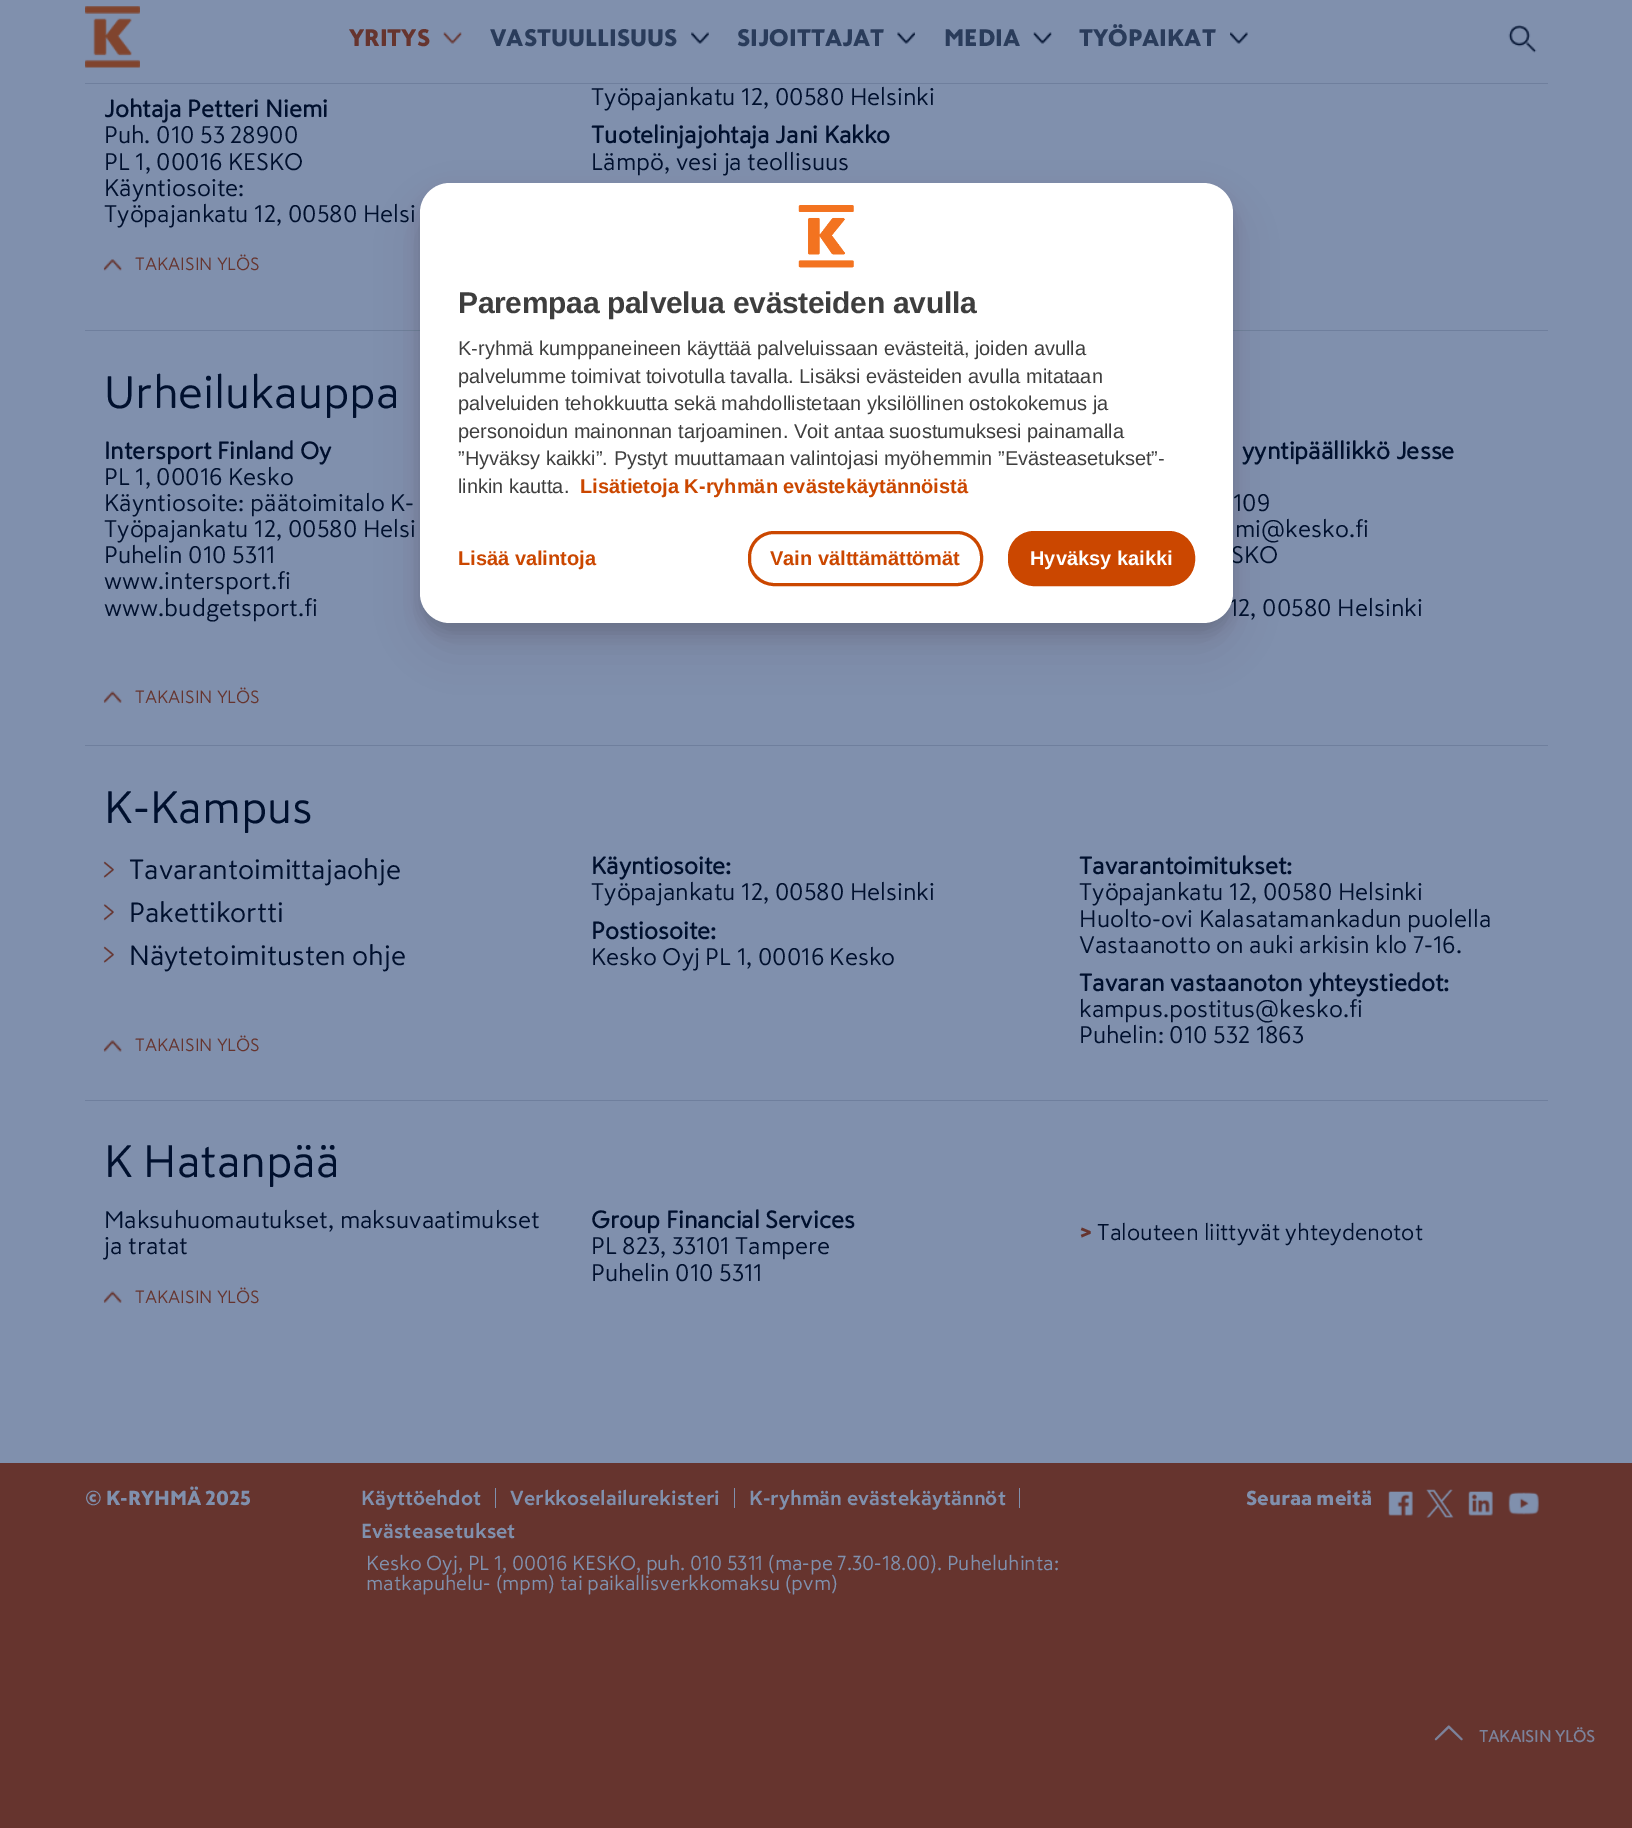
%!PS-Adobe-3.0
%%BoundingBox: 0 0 1632 1828
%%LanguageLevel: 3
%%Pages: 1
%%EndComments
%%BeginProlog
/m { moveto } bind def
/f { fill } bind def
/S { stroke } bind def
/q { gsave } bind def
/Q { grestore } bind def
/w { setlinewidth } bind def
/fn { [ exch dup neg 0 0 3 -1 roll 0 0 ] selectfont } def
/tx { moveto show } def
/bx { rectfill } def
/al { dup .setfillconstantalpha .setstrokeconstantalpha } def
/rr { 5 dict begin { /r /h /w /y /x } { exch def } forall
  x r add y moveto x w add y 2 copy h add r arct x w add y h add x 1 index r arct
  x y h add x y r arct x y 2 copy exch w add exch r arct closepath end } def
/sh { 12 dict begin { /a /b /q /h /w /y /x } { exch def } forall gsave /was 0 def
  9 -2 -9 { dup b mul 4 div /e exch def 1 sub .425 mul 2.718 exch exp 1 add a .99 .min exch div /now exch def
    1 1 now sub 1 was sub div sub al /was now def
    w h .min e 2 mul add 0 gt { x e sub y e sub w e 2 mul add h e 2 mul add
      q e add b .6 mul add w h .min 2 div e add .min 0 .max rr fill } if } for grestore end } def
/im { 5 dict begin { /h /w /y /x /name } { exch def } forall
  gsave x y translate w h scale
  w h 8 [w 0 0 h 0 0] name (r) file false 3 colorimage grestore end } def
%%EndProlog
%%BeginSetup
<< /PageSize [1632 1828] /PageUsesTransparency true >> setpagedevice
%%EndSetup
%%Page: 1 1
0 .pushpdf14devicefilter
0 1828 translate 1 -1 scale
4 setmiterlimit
0.502 0.565 0.678 setrgbcolor
0 0 1632 1828 bx
0.435 0.498 0.616 setrgbcolor
85 83 1463 1 bx
(image0.raw) 85 6 55 62 im
(image1.raw) 1508 25 29 28 im
(image2.raw) 443 32 19 12 im
/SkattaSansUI-Black 23.75 fn
0.4 0.204 0.18 setrgbcolor
(YRITYS) 349 46 tx
(image3.raw) 691 32 18 12 im
0.165 0.235 0.357 setrgbcolor
(VASTUULLISUUS) 490 46 tx
(image4.raw) 897 32 18 12 im
(SIJOITTAJAT) 737 46 tx
(image5.raw) 1033 32 19 12 im
(MEDIA) 944 46 tx
(image6.raw) 1230 32 18 12 im
(TYÖPAIKAT) 1079 46 tx
0.435 0.498 0.616 setrgbcolor
85 330 1463 1 bx
/SkattaSansUI-Bold 23.75 fn
0 0.063 0.18 setrgbcolor
(Johtaja Petteri Niemi) 104 117 tx
/SkattaSansUI-Regular 23.75 fn
(Puh. 010 53 28900) 104 143 tx
(PL 1, 00016 KESKO) 104 170 tx
(Käyntiosoite:) 104 196 tx
(Työpajankatu 12, 00580 Helsi) 104 222 tx
(image7.raw) 103 259 19 12 im
/SkattaSansUI-Regular 17.5 fn
0.4 0.204 0.18 setrgbcolor
(TAKAISIN YLÖS) 135 270 tx
/SkattaSansUI-Regular 23.75 fn
0 0.063 0.18 setrgbcolor
(Työpajankatu 12, 00580 Helsinki) 591 105 tx
/SkattaSansUI-Bold 23.75 fn
(Tuotelinjajohtaja Jani Kakko) 591 143 tx
/SkattaSansUI-Regular 23.75 fn
(Lämpö, vesi ja teollisuus) 591 170 tx
0.435 0.498 0.616 setrgbcolor
85 745 1463 1 bx
/SkattaSansUI-Regular 45 fn
0 0.063 0.18 setrgbcolor
(Urheilukauppa) 104 408 tx
/SkattaSansUI-Bold 23.75 fn
(Intersport Finland Oy) 104 459 tx
/SkattaSansUI-Regular 23.75 fn
(PL 1, 00016 Kesko) 104 485 tx
(Käyntiosoite: päätoimitalo K-) 104 511 tx
(Työpajankatu 12, 00580 Helsi) 104 537 tx
(Puhelin 010 5311) 104 563 tx
(www.intersport.fi) 104 589 tx
(www.budgetsport.fi) 104 616 tx
(image8.raw) 103 691 19 12 im
/SkattaSansUI-Regular 17.5 fn
0.4 0.204 0.18 setrgbcolor
(TAKAISIN YLÖS) 135 703 tx
/SkattaSansUI-Bold 23.75 fn
0 0.063 0.18 setrgbcolor
(yyntipäällikkö Jesse) 1242 459 tx
/SkattaSansUI-Regular 23.75 fn
(109) 1233 511 tx
(mi@kesko.fi) 1235 537 tx
(SKO) 1231 563 tx
(12, 00580 Helsinki) 1229 616 tx
0.435 0.498 0.616 setrgbcolor
85 1100 1463 1 bx
/SkattaSansUI-Regular 45 fn
0 0.063 0.18 setrgbcolor
(K-Kampus) 104 823 tx
(image9.raw) 103 861 11 17 im
/SkattaSansUI-Regular 27.5 fn
(Tavarantoimittajaohje) 129 879 tx
(image10.raw) 103 904 11 17 im
(Pakettikortti) 129 922 tx
(image9.raw) 103 946 11 17 im
(Näytetoimitusten ohje) 129 965 tx
(image11.raw) 103 1040 19 12 im
/SkattaSansUI-Regular 17.5 fn
0.4 0.204 0.18 setrgbcolor
(TAKAISIN YLÖS) 135 1051 tx
/SkattaSansUI-Bold 23.75 fn
0 0.063 0.18 setrgbcolor
(Käyntiosoite:) 591 874 tx
/SkattaSansUI-Regular 23.75 fn
(Työpajankatu 12, 00580 Helsinki) 591 900 tx
/SkattaSansUI-Bold 23.75 fn
(Postiosoite:) 591 939 tx
/SkattaSansUI-Regular 23.75 fn
(Kesko Oyj PL 1, 00016 Kesko) 591 965 tx
/SkattaSansUI-Bold 23.75 fn
(Tavarantoimitukset:) 1079 874 tx
/SkattaSansUI-Regular 23.75 fn
(Työpajankatu 12, 00580 Helsinki) 1079 900 tx
(Huolto-ovi Kalasatamankadun puolella) 1079 927 tx
(Vastaanotto on auki arkisin klo 7-16.) 1079 953 tx
/SkattaSansUI-Bold 23.75 fn
(Tavaran vastaanoton yhteystiedot:) 1079 991 tx
/SkattaSansUI-Regular 23.75 fn
(kampus.postitus@kesko.fi) 1079 1017 tx
(Puhelin: 010 532 1863) 1079 1043 tx
/SkattaSansUI-Regular 45 fn
(K Hatanpää) 104 1177 tx
/SkattaSansUI-Regular 23.75 fn
(Maksuhuomautukset, maksuvaatimukset) 104 1228 tx
(ja tratat) 104 1254 tx
(image8.raw) 103 1291 19 12 im
/SkattaSansUI-Regular 17.5 fn
0.4 0.204 0.18 setrgbcolor
(TAKAISIN YLÖS) 135 1303 tx
/SkattaSansUI-Bold 23.75 fn
0 0.063 0.18 setrgbcolor
(Group Financial Services) 591 1228 tx
/SkattaSansUI-Regular 23.75 fn
(PL 823, 33101 Tampere) 591 1254 tx
(Puhelin 010 5311) 591 1281 tx
/SkattaSansUI-Black 22.5 fn
0.4 0.204 0.18 setrgbcolor
(>) 1079 1240 tx
/SkattaSansUI-Regular 22.5 fn
0 0.063 0.18 setrgbcolor
(Talouteen liittyvät yhteydenotot) 1097 1240 tx
0.4 0.204 0.18 setrgbcolor
0 1463 1632 365 bx
/SkattaSansUI-Black 20 fn
0.502 0.565 0.678 setrgbcolor
(© K-RYHMÄ 2025) 85 1505 tx
495 1488 1 20 bx
/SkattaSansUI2-Bold 20 fn
(Käyttöehdot) 361 1505 tx
734 1488 1 20 bx
(Verkkoselailurekisteri) 510 1505 tx
1019 1488 1 20 bx
(K-ryhmän evästekäytännöt) 749 1505 tx
(Evästeasetukset) 361 1538 tx
/SkattaSansUI-Regular 20 fn
(Kesko Oyj, PL 1, 00016 KESKO, puh. 010 5311 \(ma-pe 7.30-18.00\). Puheluhinta:) 366 1570 tx
(matkapuhelu- \(mpm\) tai paikallisverkkomaksu \(pvm\)) 366 1590 tx
/SkattaSansUI-Black 20 fn
(Seuraa meitä) 1246 1505 tx
(image12.raw) 1388 1491 25 25 im
(image13.raw) 1426 1489 28 29 im
(image14.raw) 1468 1491 25 25 im
(image15.raw) 1508 1492 31 23 im
(image16.raw) 1434 1725 29 16 im
/SkattaSansUI-Bold 16.25 fn
0.486 0.51 0.604 setrgbcolor
(TAKAISIN YLÖS) 1479 1742 tx
0 setgray
418 205 817 445 33 20 0.08 sh
420 193 813 440 30 7.5 0.12 sh
1 setgray
420 183 813 440 30 rr f
(image17.raw) 798 205 56 63 im
/LiberationSans-Bold 30 fn
0.243 setgray
458 313 m -0.3 0 (Parempaa palvelua evästeiden avulla) ashow
/LiberationSans-Regular 20 fn
(K-ryhmä kumppaneineen käyttää palveluissaan evästeitä, joiden avulla) 458 355 tx
(palvelumme toimivat toivotulla tavalla. Lisäksi evästeiden avulla mitataan) 458 383 tx
(palveluiden tehokkuutta sekä mahdollistetaan yksilöllinen ostokokemus ja) 458 410 tx
(personoidun mainonnan tarjoaminen. Voit antaa suostumuksesi painamalla) 458 438 tx
(”Hyväksy kaikki”. Pystyt muuttamaan valintojasi myöhemmin ”Evästeasetukset”-) 458 465 tx
(linkin kautta.) 458 493 tx
/LiberationSans-Bold 20 fn
0.796 0.278 0 setrgbcolor
(Lisätietoja K-ryhmän evästekäytännöistä) 580 493 tx
(Lisää valintoja) 458 565 tx
3 w
749.5 532.5 232 52 24.5 rr S
(Vain välttämättömät) 770 565 tx
1009.5 532.5 184 52 24.5 rr q f Q
S
1 setgray
(Hyväksy kaikki) 1030 565 tx
.poppdf14devicefilter showpage
%%EOF
